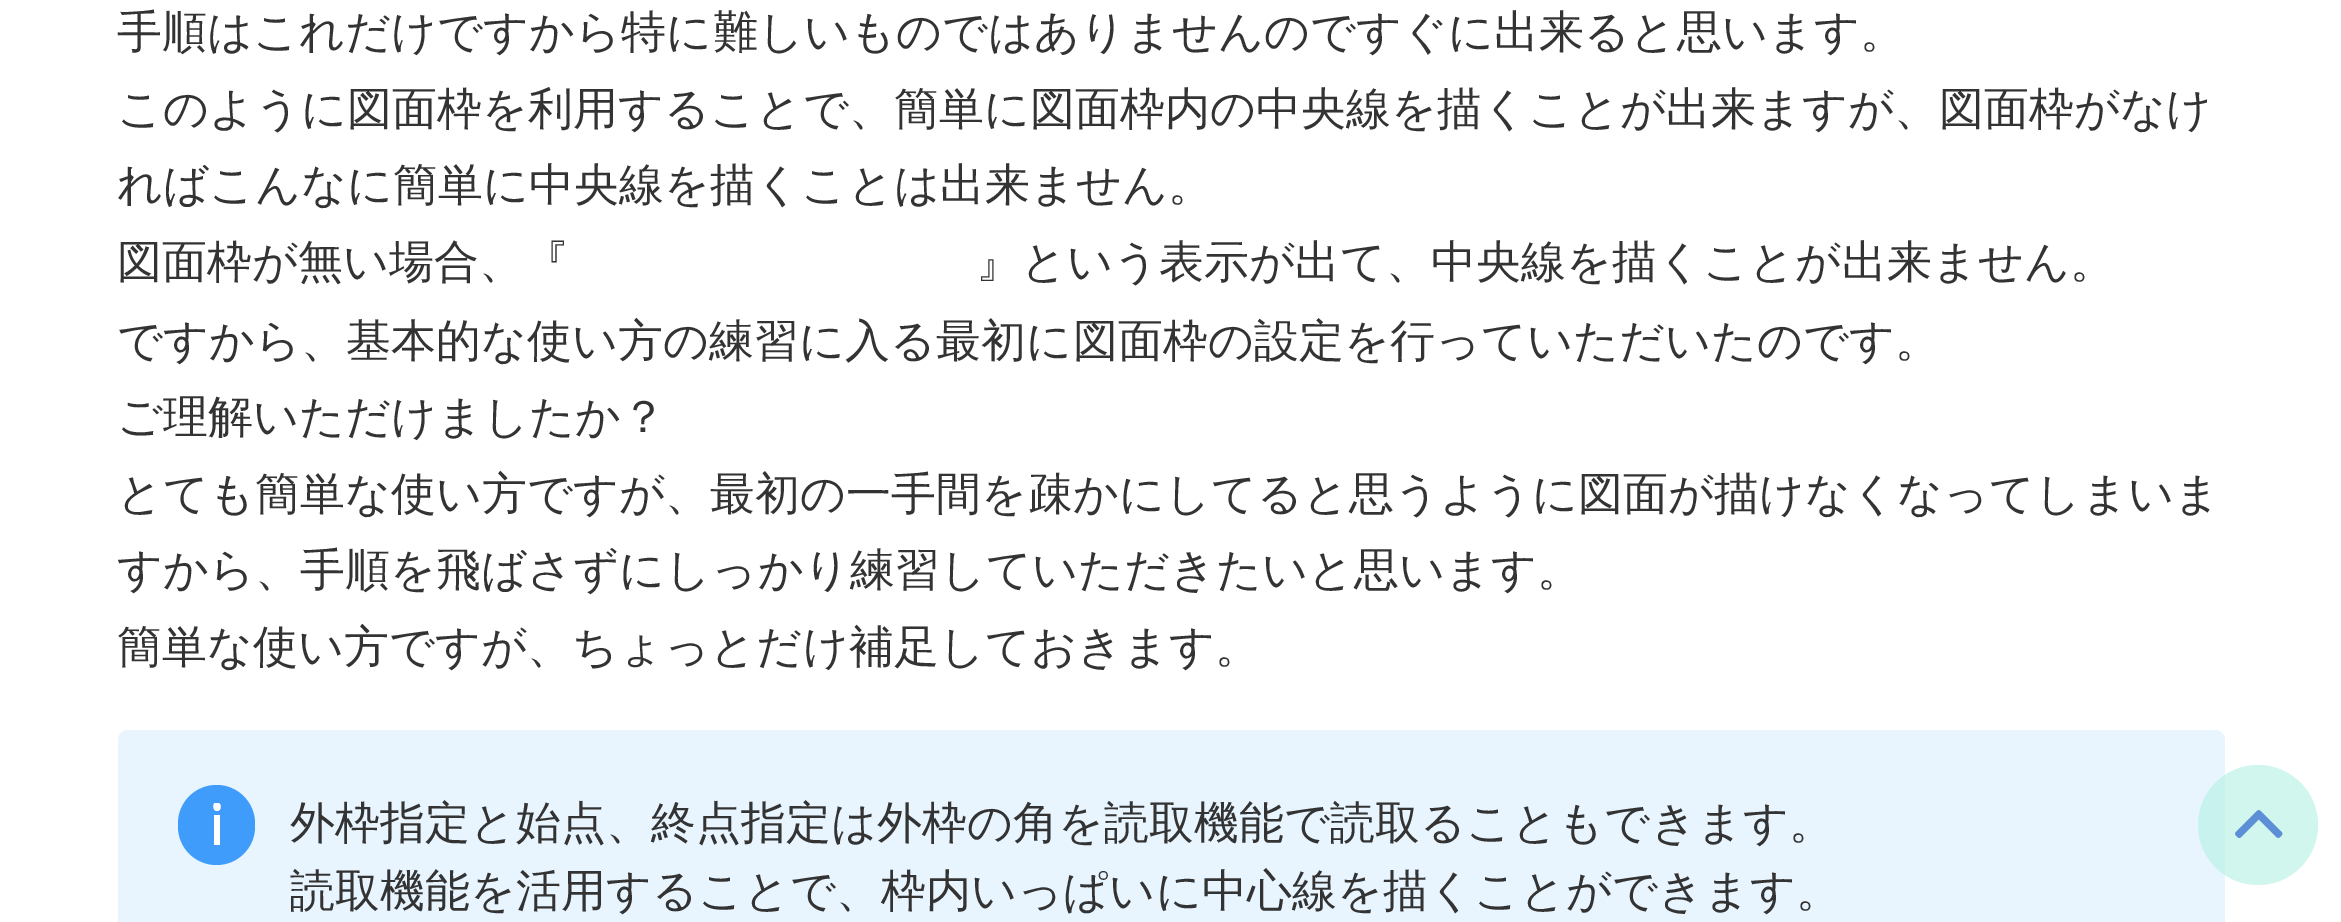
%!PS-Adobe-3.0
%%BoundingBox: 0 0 2341 922
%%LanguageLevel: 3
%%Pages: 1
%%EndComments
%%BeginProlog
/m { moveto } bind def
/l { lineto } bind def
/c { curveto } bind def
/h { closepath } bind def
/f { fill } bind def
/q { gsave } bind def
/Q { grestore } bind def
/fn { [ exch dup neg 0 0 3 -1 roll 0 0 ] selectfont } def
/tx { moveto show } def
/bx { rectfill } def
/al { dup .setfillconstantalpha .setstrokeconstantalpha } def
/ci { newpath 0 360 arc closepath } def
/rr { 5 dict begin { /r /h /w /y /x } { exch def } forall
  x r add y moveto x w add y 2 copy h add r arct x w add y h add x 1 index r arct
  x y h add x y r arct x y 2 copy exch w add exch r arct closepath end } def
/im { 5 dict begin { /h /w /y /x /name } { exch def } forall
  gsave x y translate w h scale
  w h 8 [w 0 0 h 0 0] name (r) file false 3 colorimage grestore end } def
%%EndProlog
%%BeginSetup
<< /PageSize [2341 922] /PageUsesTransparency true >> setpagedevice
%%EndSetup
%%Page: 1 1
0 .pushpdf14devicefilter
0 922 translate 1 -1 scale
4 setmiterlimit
1 setgray
0 0 2341 922 bx
/WenQuanYiZenHei-Medium 45 fn
0.2 setgray
(手順はこれだけですから特に難しいものではありませんのですぐに出来ると思います。) 117 47 tx
(このように図面枠を利用することで、簡単に図面枠内の中央線を描くことが出来ますが、図面枠がなけ) 117 124 tx
(ればこんなに簡単に中央線を描くことは出来ません。) 117 200 tx
(図面枠が無い場合、『) 117 277 tx
(』という表示が出て、中央線を描くことが出来ません。) 976 277 tx
(ですから、基本的な使い方の練習に入る最初に図面枠の設定を行っていただいたのです。) 117 356 tx
(ご理解いただけましたか？) 117 432 tx
(とても簡単な使い方ですが、最初の一手間を疎かにしてると思うように図面が描けなくなってしまいま) 117 509 tx
(すから、手順を飛ばさずにしっかり練習していただきたいと思います。) 117 585 tx
(簡単な使い方ですが、ちょっとだけ補足しておきます。) 117 662 tx
0.91 0.961 1 setrgbcolor
118 730 2107 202 10 rr f
0.251 0.612 0.98 setrgbcolor
178 785 77 80 38.5 rr f
q
213 803 8 42 rectclip
1 setgray
214 845 m 220 845 l 220 815 l 214 815 l h 217 811 m 222 811 222 803 217 802 c 212 802 212 811 217 811 c h f
Q
0.2 setgray
(外枠指定と始点、終点指定は外枠の角を読取機能で読取ることもできます。) 290 838 tx
(読取機能を活用することで、枠内いっぱいに中心線を描くことができます。) 290 906 tx
0.6 al
0.698 0.941 0.882 setrgbcolor
2258 825 60 ci f
1 al
(image0.raw) 2235 810 48 28 im
.poppdf14devicefilter showpage
%%EOF
